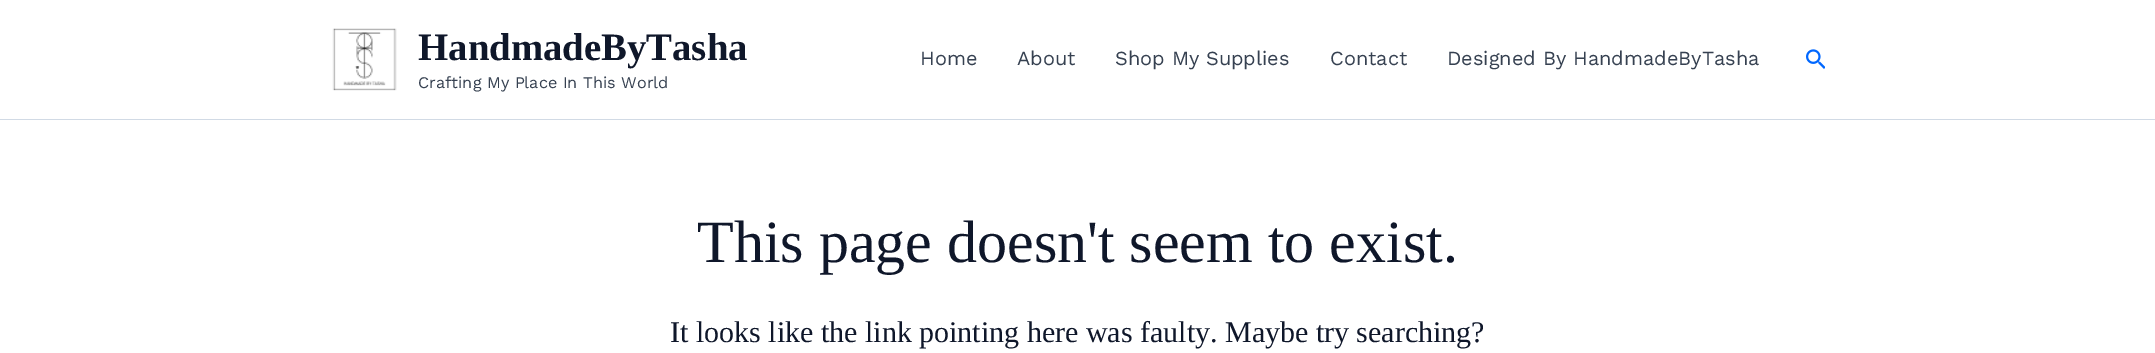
%!PS-Adobe-3.0
%%BoundingBox: 0 0 2155 353
%%LanguageLevel: 3
%%Pages: 1
%%EndComments
%%BeginProlog
/fn { [ exch dup neg 0 0 3 -1 roll 0 0 ] selectfont } def
/tx { moveto show } def
/bx { rectfill } def
/im { 5 dict begin { /h /w /y /x /name } { exch def } forall
  gsave x y translate w h scale
  w h 8 [w 0 0 h 0 0] name (r) file false 3 colorimage grestore end } def
%%EndProlog
%%BeginSetup
<< /PageSize [2155 353] >> setpagedevice
%%EndSetup
%%Page: 1 1
0 353 translate 1 -1 scale
4 setmiterlimit
1 setgray
0 0 2155 353 bx
0.82 0.855 0.898 setrgbcolor
0 119 2155 1 bx
(image0.raw) 332 28 65 63 im
/LiberationSerif-Bold 38.75 fn
0.059 0.09 0.165 setrgbcolor
(HandmadeByTasha) 418 60 tx
/WorkSans-Regular 16.25 fn
0.212 0.255 0.318 setrgbcolor
(Crafting My Place In This World) 418 88 tx
/WorkSans-Regular 20 fn
(Home) 920 65 tx
(About) 1017 65 tx
(Shop My Supplies) 1115 65 tx
(Contact) 1330 65 tx
(Designed By HandmadeByTasha) 1447 65 tx
(image1.raw) 1806 49 19 20 im
/LiberationSerif-Regular 60 fn
0.059 0.09 0.165 setrgbcolor
(This page doesn't seem to exist.) 697 262 tx
/LiberationSerif-Regular 30 fn
(It looks like the link pointing here was faulty. Maybe try searching?) 670 342 tx
showpage
%%EOF
